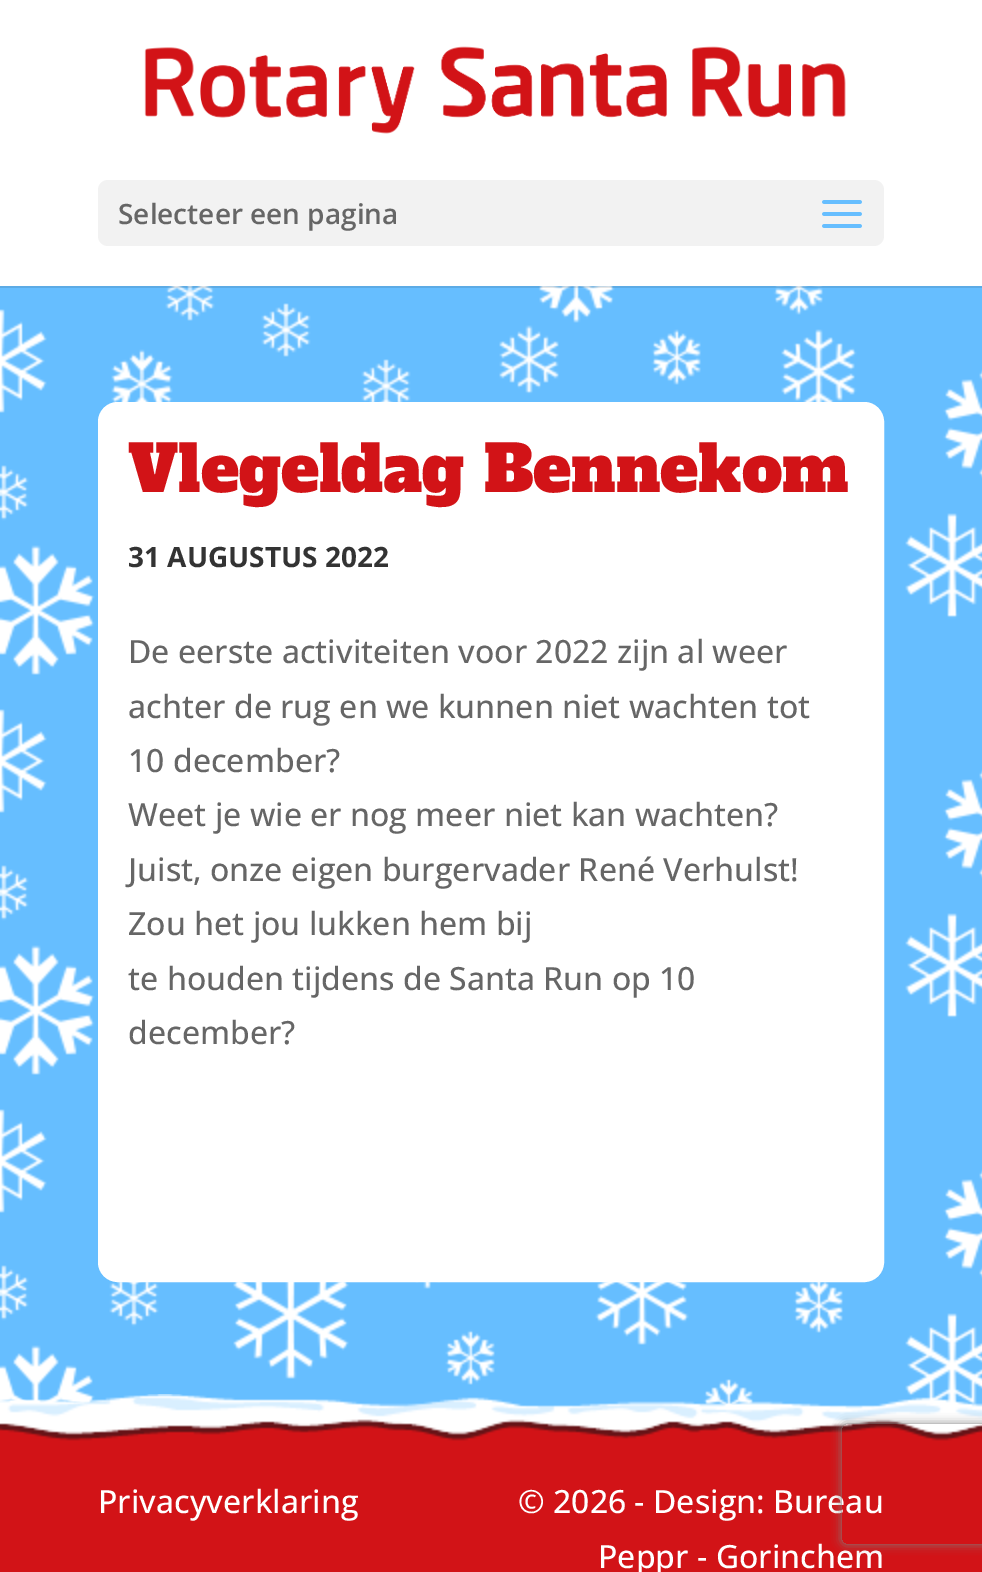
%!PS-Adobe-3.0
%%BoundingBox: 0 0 982 1572
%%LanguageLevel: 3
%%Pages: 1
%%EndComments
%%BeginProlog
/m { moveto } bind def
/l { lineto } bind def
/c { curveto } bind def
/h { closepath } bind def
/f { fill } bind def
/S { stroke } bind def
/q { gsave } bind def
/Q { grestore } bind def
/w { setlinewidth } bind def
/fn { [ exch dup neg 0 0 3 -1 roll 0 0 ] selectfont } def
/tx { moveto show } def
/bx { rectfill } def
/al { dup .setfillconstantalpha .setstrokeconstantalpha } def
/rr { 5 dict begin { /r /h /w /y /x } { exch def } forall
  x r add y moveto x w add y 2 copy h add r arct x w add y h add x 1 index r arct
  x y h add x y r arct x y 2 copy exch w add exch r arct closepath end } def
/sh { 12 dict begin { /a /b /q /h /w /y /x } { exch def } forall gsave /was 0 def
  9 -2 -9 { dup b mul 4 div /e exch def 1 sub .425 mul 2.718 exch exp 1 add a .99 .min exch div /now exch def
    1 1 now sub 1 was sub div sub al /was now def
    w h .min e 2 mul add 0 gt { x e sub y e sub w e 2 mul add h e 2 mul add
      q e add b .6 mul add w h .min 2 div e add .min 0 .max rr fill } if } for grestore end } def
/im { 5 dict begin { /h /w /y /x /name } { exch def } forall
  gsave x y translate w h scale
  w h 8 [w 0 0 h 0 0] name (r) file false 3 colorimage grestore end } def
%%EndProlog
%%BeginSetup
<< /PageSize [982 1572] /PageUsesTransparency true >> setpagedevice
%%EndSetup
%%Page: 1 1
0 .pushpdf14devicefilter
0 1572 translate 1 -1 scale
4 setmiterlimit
1 setgray
0 0 982 1572 bx
(image2.raw) 0 286 982 1123 im
0.1 al
0 setgray
0 286 982 2 bx
1 al
(image0.raw) 144 46 702 88 im
0.949 setgray
98 180 786 66 10 rr f
/OpenSans-SemiBold 28 fn
0.4 setgray
(Selecteer een pagina) 118 224 tx
(image1.raw) 822 200 40 28 im
(image3.raw) 0 1394 982 52 im
1 setgray
113 417 756 850 5 rr q f Q
30 w
S
/AlfaSlabOne-Regular 64 fn
0.824 0.075 0.09 setrgbcolor
(Vlegeldag Bennekom) 128 492 tx
/OpenSans-Bold 28 fn
0.2 setgray
(31 AUGUSTUS 2022) 128 567 tx
/OpenSans-Medium 32 fn
0.4 setgray
(De eerste activiteiten voor 2022 zijn al weer) 128 663 tx
(achter de rug en we kunnen niet wachten tot) 128 718 tx
(10 december?) 128 772 tx
(Weet je wie er nog meer niet kan wachten?) 128 826 tx
(Juist, onze eigen burgervader René Verhulst!) 128 881 tx
(Zou het jou lukken hem bij) 128 935 tx
(te houden tijdens de Santa Run op 10) 128 990 tx
(december?) 128 1044 tx
0.824 0.075 0.09 setrgbcolor
0 1446 982 126 bx
1 setgray
(Privacyverklaring) 98 1513 tx
(© 2026 - Design: Bureau) 518 1513 tx
(Peppr - Gorinchem) 598 1568 tx
q
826 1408 m 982 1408 l 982 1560 l 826 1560 l h 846 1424 m 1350 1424 l 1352 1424 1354 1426 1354 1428 c 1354 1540 l 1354 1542 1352 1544 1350 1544 c 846 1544 l 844 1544 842 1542 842 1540 c 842 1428 l 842 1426 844 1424 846 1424 c h eoclip newpath
0.502 setgray
842 1424 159 120 4 5 1 sh
Q
.poppdf14devicefilter showpage
%%EOF
